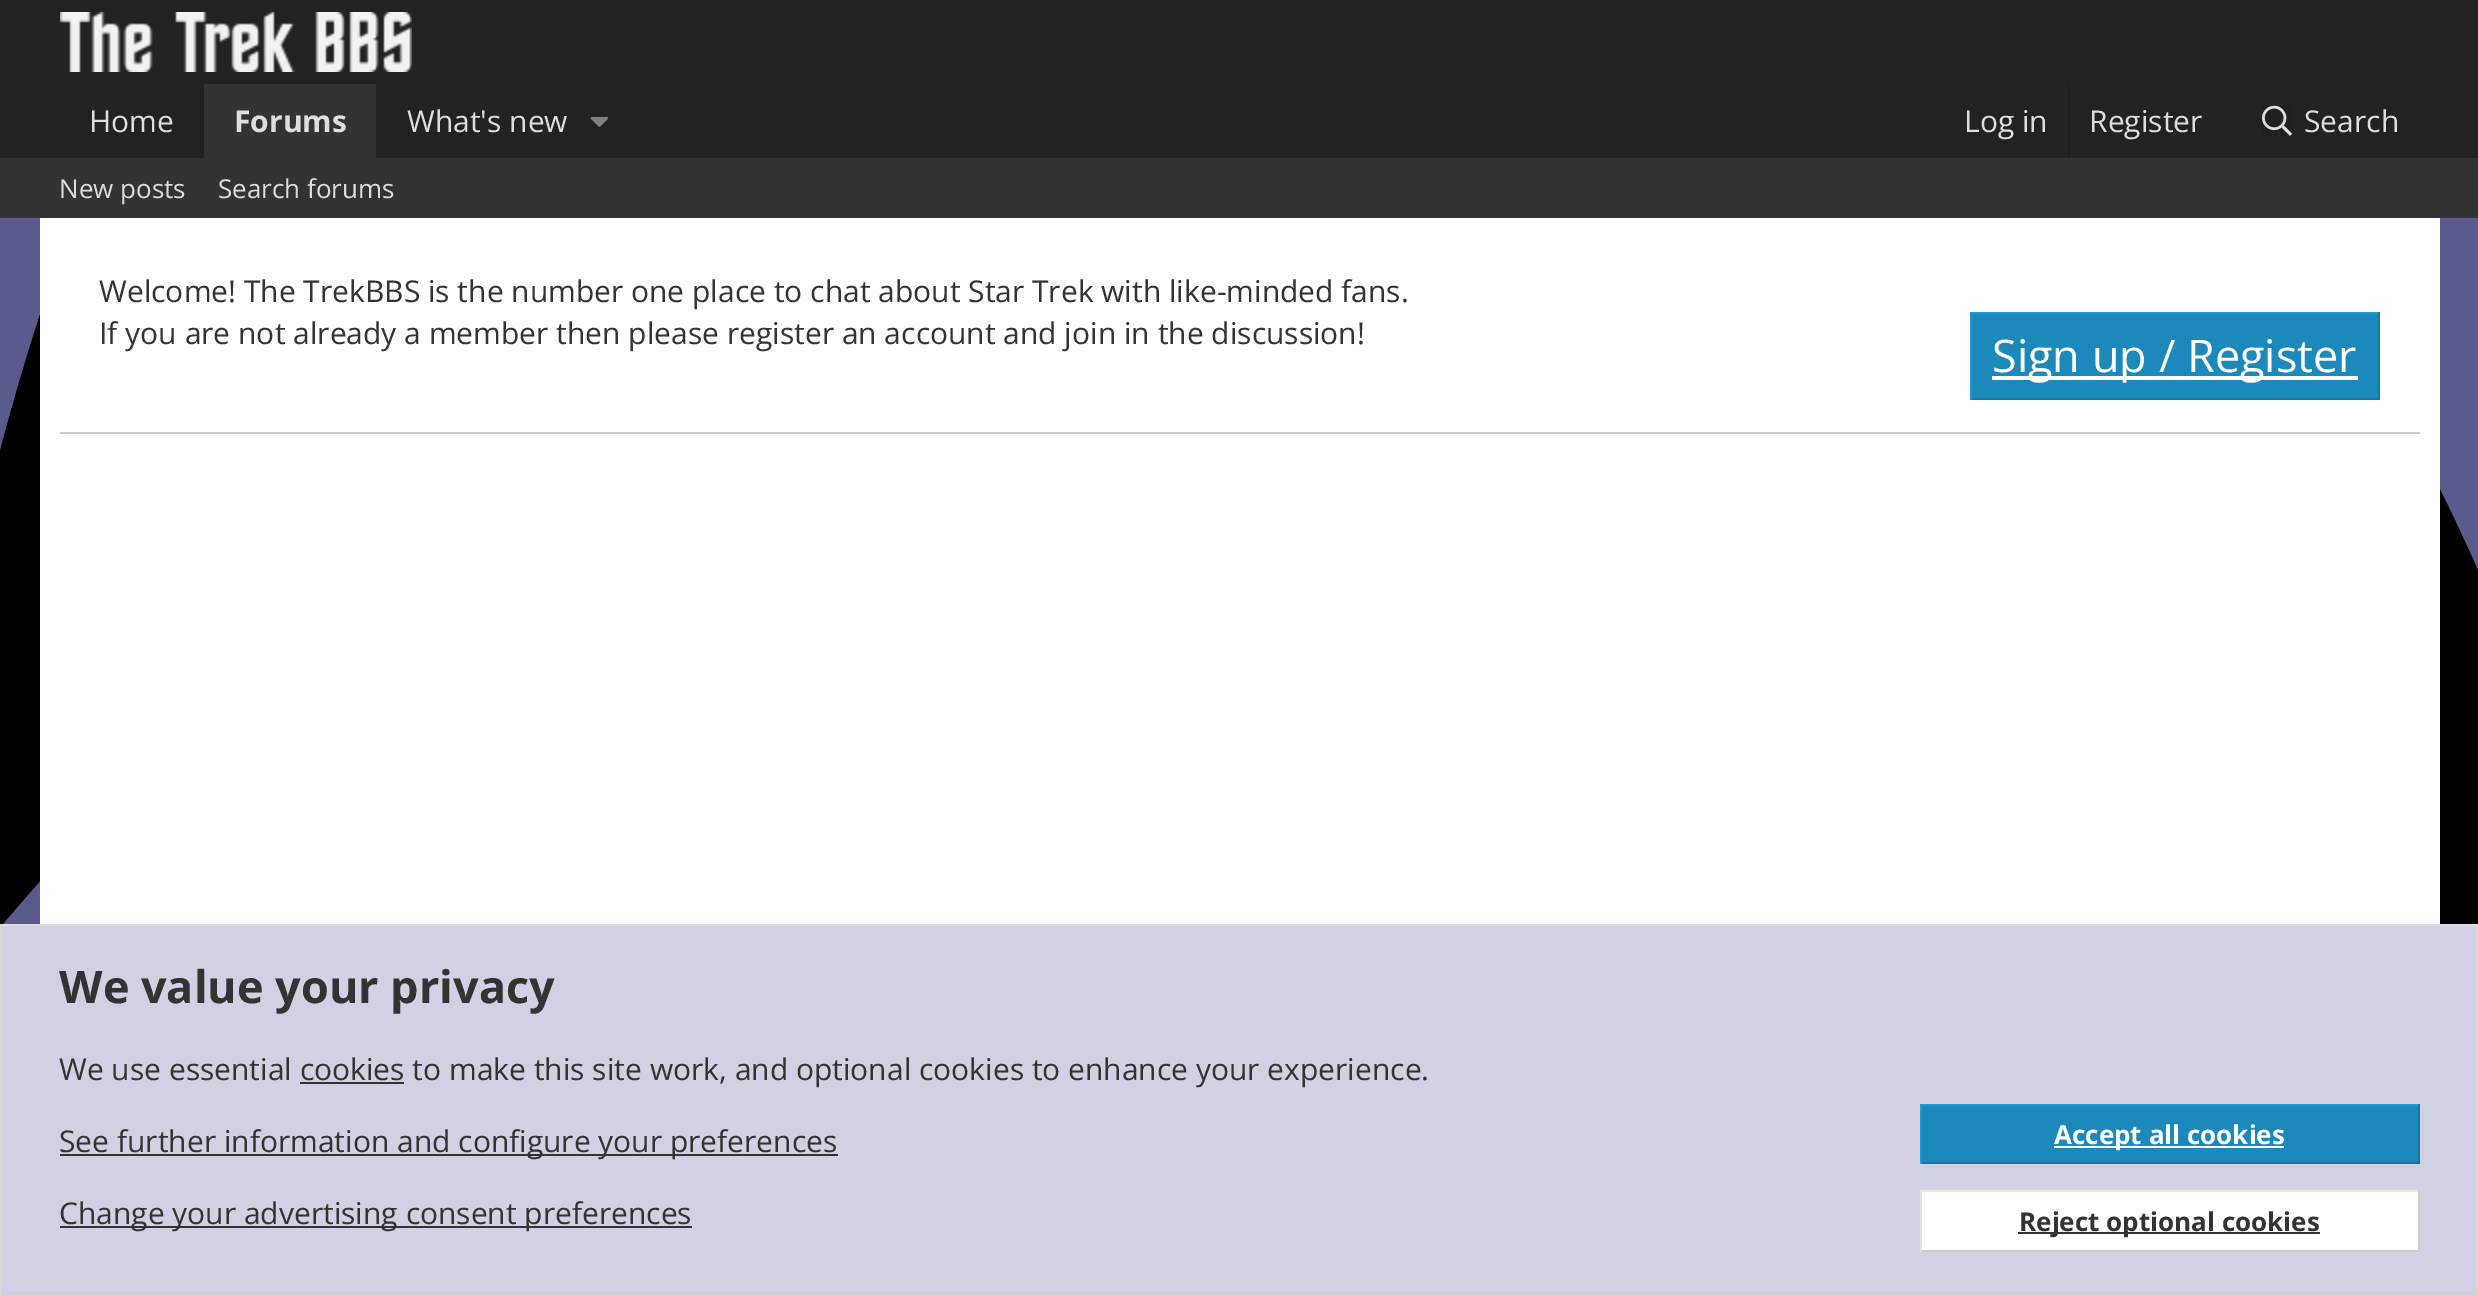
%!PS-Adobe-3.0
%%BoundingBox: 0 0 2478 1295
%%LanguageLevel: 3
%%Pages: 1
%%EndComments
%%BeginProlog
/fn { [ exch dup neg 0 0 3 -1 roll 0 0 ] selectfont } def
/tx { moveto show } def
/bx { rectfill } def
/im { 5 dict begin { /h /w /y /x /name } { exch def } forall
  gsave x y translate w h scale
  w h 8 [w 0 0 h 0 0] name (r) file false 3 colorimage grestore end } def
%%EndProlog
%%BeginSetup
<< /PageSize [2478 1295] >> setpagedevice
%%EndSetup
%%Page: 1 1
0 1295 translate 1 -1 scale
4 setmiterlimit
0.133 setgray
0 0 2478 1295 bx
(image0.raw) 60 12 352 60 im
/OpenSans-Regular 30 fn
0.871 setgray
(Home) 89 132 tx
0.2 setgray
204 84 172 74 bx
/OpenSans-Bold 30 fn
0.871 setgray
(Forums) 234 132 tx
/OpenSans-Regular 30 fn
(What's new) 407 132 tx
(image1.raw) 590 117 18 10 im
(Log in) 1964 132 tx
0.118 setgray
2068 84 2 74 bx
0.871 setgray
(Register) 2089 132 tx
(image2.raw) 2262 105 30 31 im
(Search) 2304 132 tx
0.2 setgray
0 158 2478 60 bx
/OpenSans-Regular 26 fn
0.871 setgray
(New posts) 59 198 tx
(Search forums) 218 198 tx
(image3.raw) 0 218 2478 706 im
0.996 setgray
40 218 2400 706 bx
0.796 setgray
60 432 2360 2 bx
/OpenSans-Regular 30 fn
0.2 setgray
(Welcome! The TrekBBS is the number one place to chat about Star Trek with like-minded fans.) 99 302 tx
(If you are not already a member then please register an account and join in the discussion!) 99 344 tx
0.11 0.537 0.733 setrgbcolor
1972 314 406 84 bx
0.122 0.6 0.82 setrgbcolor
1970 312 410 2 bx
0.098 0.475 0.647 setrgbcolor
2378 312 2 88 bx
1970 398 410 2 bx
0.122 0.6 0.82 setrgbcolor
1970 312 2 88 bx
1 setgray
1992 376 366 4 bx
/OpenSans-Regular 45 fn
(Sign up / Register) 1992 372 tx
0.816 0.82 0.886 setrgbcolor
2 926 2474 368 bx
0.875 setgray
0 924 2478 2 bx
0.847 setgray
2476 924 2 371 bx
0.796 setgray
0 1294 2478 1 bx
0.847 setgray
0 924 2 371 bx
/OpenSans-Bold 45 fn
0.2 setgray
(We value your privacy) 59 1003 tx
/OpenSans-Regular 30 fn
(We use essential cookies to make this site work, and optional cookies to enhance your experience.) 59 1080 tx
300 1082 104 2 bx
60 1154 778 2 bx
(See further information and configure your preferences) 59 1152 tx
60 1226 632 2 bx
(Change your advertising consent preferences) 59 1224 tx
0.11 0.537 0.733 setrgbcolor
1922 1106 496 56 bx
0.122 0.6 0.82 setrgbcolor
1920 1104 500 2 bx
0.098 0.475 0.647 setrgbcolor
2418 1104 2 60 bx
1920 1162 500 2 bx
0.122 0.6 0.82 setrgbcolor
1920 1104 2 60 bx
1 setgray
2054 1146 230 2 bx
/OpenSans-Bold 26 fn
(Accept all cookies) 2054 1144 tx
0.996 setgray
1922 1192 496 58 bx
0.898 setgray
1920 1190 500 2 bx
0.796 setgray
2418 1190 2 62 bx
1920 1250 500 2 bx
0.898 setgray
1920 1190 2 62 bx
0.2 setgray
2018 1232 302 2 bx
(Reject optional cookies) 2019 1231 tx
showpage
%%EOF
